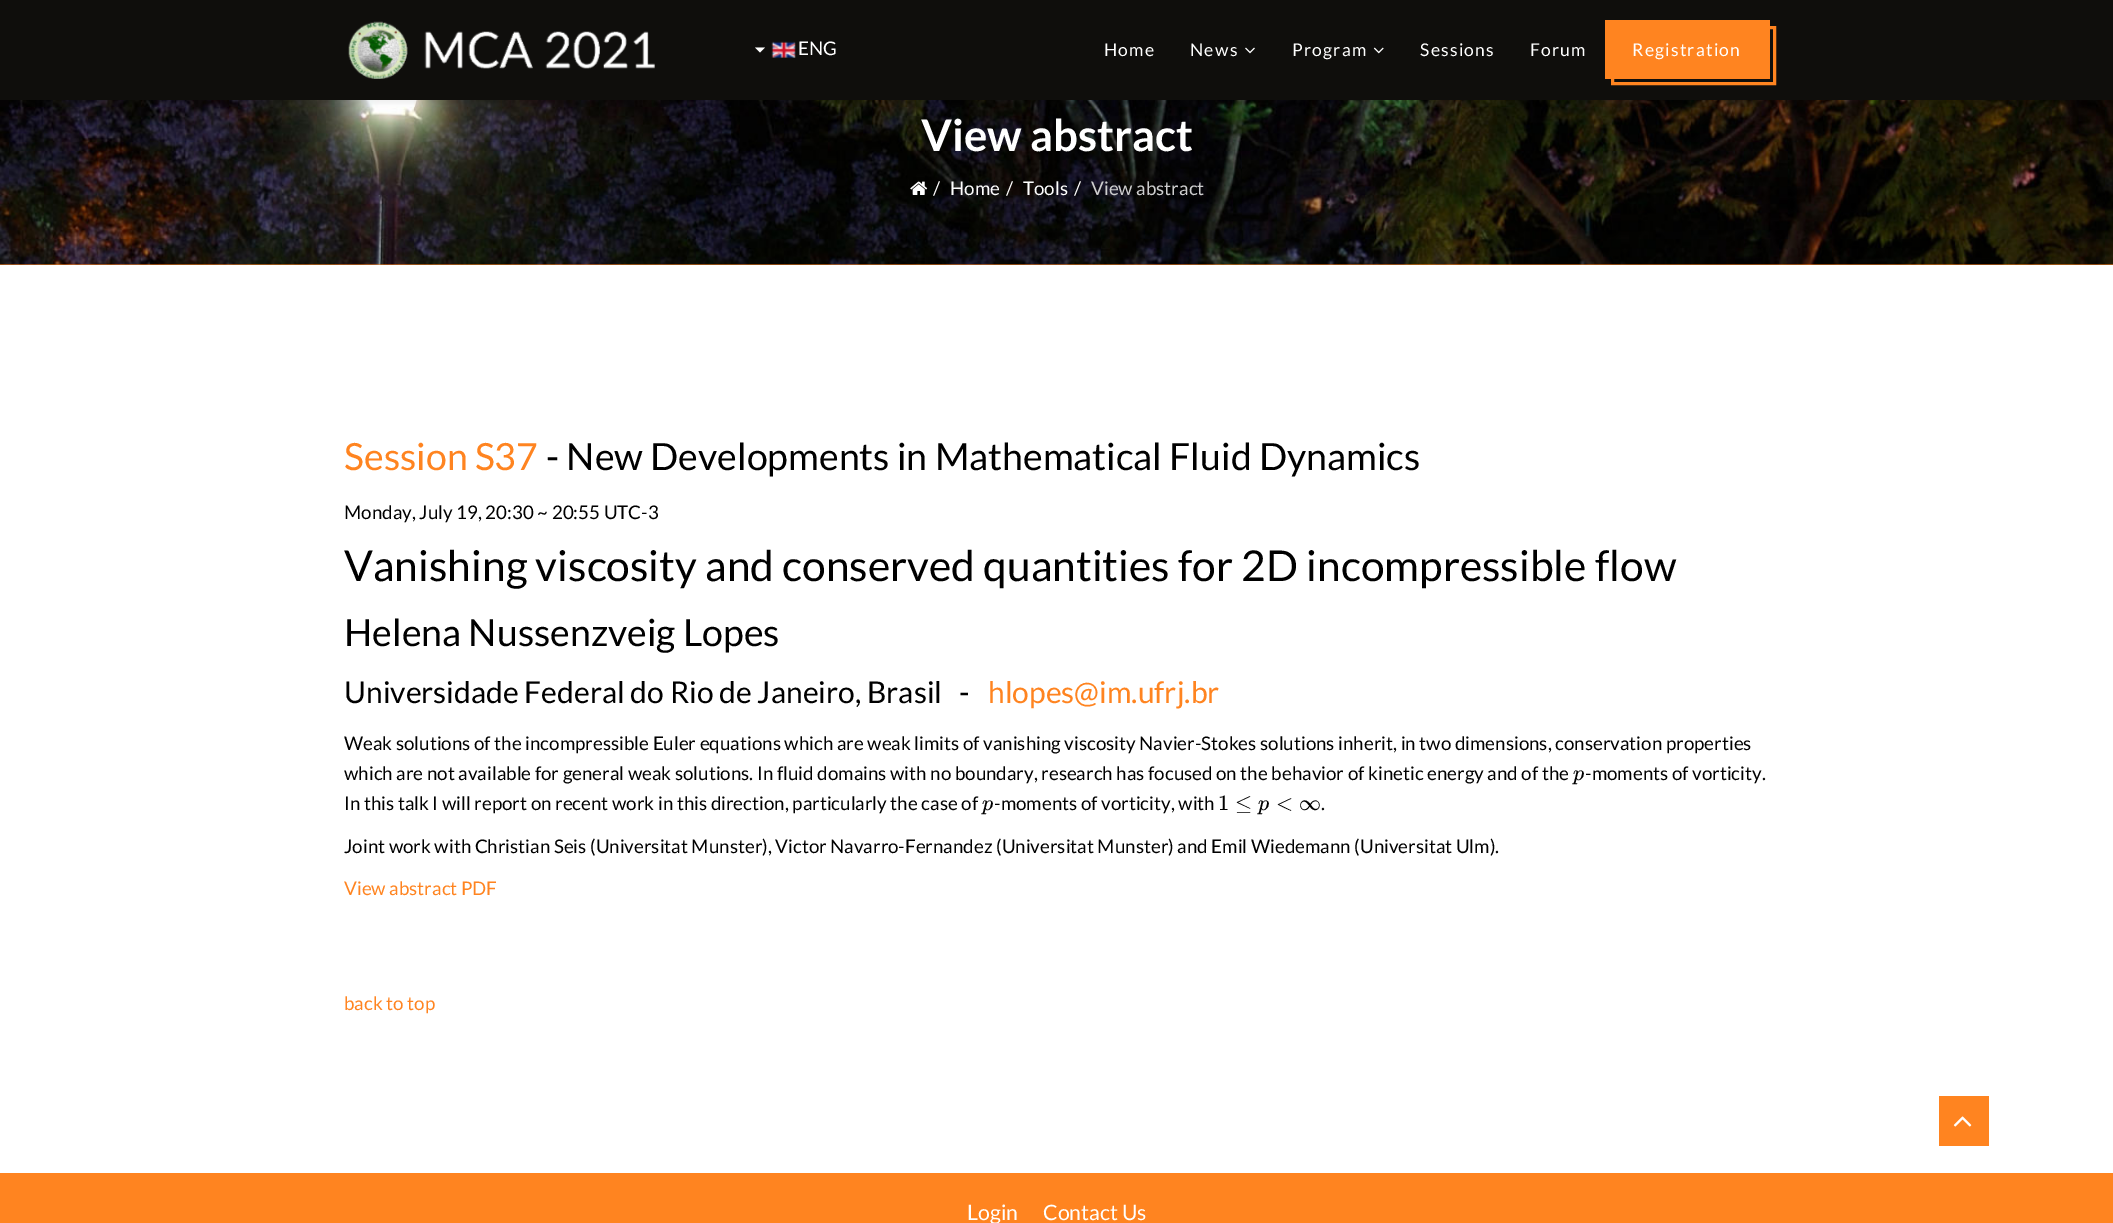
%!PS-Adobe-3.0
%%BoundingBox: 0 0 2113 1223
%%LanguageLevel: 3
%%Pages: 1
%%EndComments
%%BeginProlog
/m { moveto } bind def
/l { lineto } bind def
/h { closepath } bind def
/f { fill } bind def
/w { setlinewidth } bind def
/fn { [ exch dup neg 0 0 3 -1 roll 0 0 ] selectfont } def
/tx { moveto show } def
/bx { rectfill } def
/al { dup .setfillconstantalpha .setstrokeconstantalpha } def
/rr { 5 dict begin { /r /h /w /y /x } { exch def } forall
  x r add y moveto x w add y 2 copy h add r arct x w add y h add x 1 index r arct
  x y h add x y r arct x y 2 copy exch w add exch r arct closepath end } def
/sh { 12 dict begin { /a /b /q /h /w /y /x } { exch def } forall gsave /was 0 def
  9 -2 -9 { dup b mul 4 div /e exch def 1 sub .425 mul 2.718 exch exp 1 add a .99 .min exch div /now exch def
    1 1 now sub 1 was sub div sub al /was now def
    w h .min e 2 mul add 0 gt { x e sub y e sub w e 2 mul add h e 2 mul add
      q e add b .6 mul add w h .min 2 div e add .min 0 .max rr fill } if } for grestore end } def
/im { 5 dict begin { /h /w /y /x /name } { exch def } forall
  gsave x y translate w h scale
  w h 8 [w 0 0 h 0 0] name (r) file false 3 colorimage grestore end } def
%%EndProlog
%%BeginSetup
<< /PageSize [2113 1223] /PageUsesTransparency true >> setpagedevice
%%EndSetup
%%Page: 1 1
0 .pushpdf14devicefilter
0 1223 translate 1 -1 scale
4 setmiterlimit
1 setgray
0 0 2113 1223 bx
1 0.518 0.125 setrgbcolor
0 264 2113 1 bx
(image4.raw) 0 100 2113 165 im
0 setgray
0 4 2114 100 0 2 0.05 sh
0.059 0.055 0.047 setrgbcolor
0 0 2113 100 bx
(image0.raw) 348 21 307 58 im
1 setgray
755 47.5 m 765 47.5 l 760 52.5 l h f
(image1.raw) 771 41 25 17 im
/Lato-Regular 18.75 fn
(ENG) 798 55 tx
/Lato-Regular 17.5 fn
1104 56 m 1.25 0 (Home) ashow
1190 56 m 1.25 0 (News) ashow
(image2.raw) 1245 47 10 7 im
1292 56 m 1.25 0 (Program) ashow
(image3.raw) 1373 47 11 7 im
1420 56 m 1.25 0 (Sessions) ashow
1530 56 m 1.25 0 (Forum) ashow
1 0.518 0.125 setrgbcolor
1605 20 165 59 bx
3 w
1612.5 27.5 162 56 rectstroke
1 setgray
1632 56 m 1.25 0 (Registration) ashow
/Lato-Bold 43.75 fn
(View abstract) 921 151 tx
(image5.raw) 910 181 18 14 im
/Lato-Regular 18.75 fn
(/) 933 195 tx
(Home) 950 195 tx
(/) 1006 195 tx
(Tools) 1023 195 tx
(/) 1074 195 tx
0.808 0.808 0.812 setrgbcolor
(View abstract) 1091 195 tx
/Lato-Regular 37.5 fn
1 0.518 0.125 setrgbcolor
(Session S37) 344 470 tx
0 setgray
(- New Developments in Mathematical Fluid Dynamics) 546 470 tx
/Lato-Regular 18.75 fn
(Monday, July 19, 20:30 ~ 20:55 UTC-3) 344 519 tx
/Lato-Regular 42.5 fn
(Vanishing viscosity and conserved quantities for 2D incompressible flow) 344 581 tx
/Lato-Regular 37.5 fn
(Helena Nussenzveig Lopes) 344 646 tx
/Lato-Regular 30 fn
(Universidade Federal do Rio de Janeiro, Brasil   -) 344 703 tx
1 0.518 0.125 setrgbcolor
(hlopes@im.ufrj.br) 988 703 tx
/Lato-Regular 18.75 fn
0 setgray
(Weak solutions of the incompressible Euler equations which are weak limits of vanishing viscosity Navier-Stokes solutions inherit, in two dimensions, conservation properties) 344 750 tx
(which are not available for general weak solutions. In fluid domains with no boundary, research has focused on the behavior of kinetic energy and of the) 344 780 tx
/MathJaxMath-Italic 22 fn
(p) 1573 780 tx
/Lato-Regular 18.75 fn
(-moments of vorticity.) 1585 780 tx
(In this talk I will report on recent work in this direction, particularly the case of) 344 810 tx
/MathJaxMath-Italic 22 fn
(p) 982 810 tx
/Lato-Regular 18.75 fn
(-moments of vorticity, with) 994 810 tx
/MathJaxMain-Regular 22 fn
(1) 1218 810 tx
(≤) 1235 810 tx
/MathJaxMath-Italic 22 fn
(p) 1258 810 tx
/MathJaxMain-Regular 22 fn
(<) 1276 810 tx
(∞) 1299 810 tx
/Lato-Regular 18.75 fn
(.) 1321 810 tx
(Joint work with Christian Seis \(Universitat Munster\), Victor Navarro-Fernandez \(Universitat Munster\) and Emil Wiedemann \(Universitat Ulm\).) 344 853 tx
1 0.518 0.125 setrgbcolor
(View abstract PDF) 344 895 tx
(back to top) 344 1010 tx
0 1173 2113 50 bx
/Lato-Regular 21.25 fn
1 setgray
(Login) 967 1220 tx
(Contact Us) 1043 1220 tx
1 0.518 0.125 setrgbcolor
1939 1096 50 50 bx
(image6.raw) 1953 1116 19 11 im
.poppdf14devicefilter showpage
%%EOF
